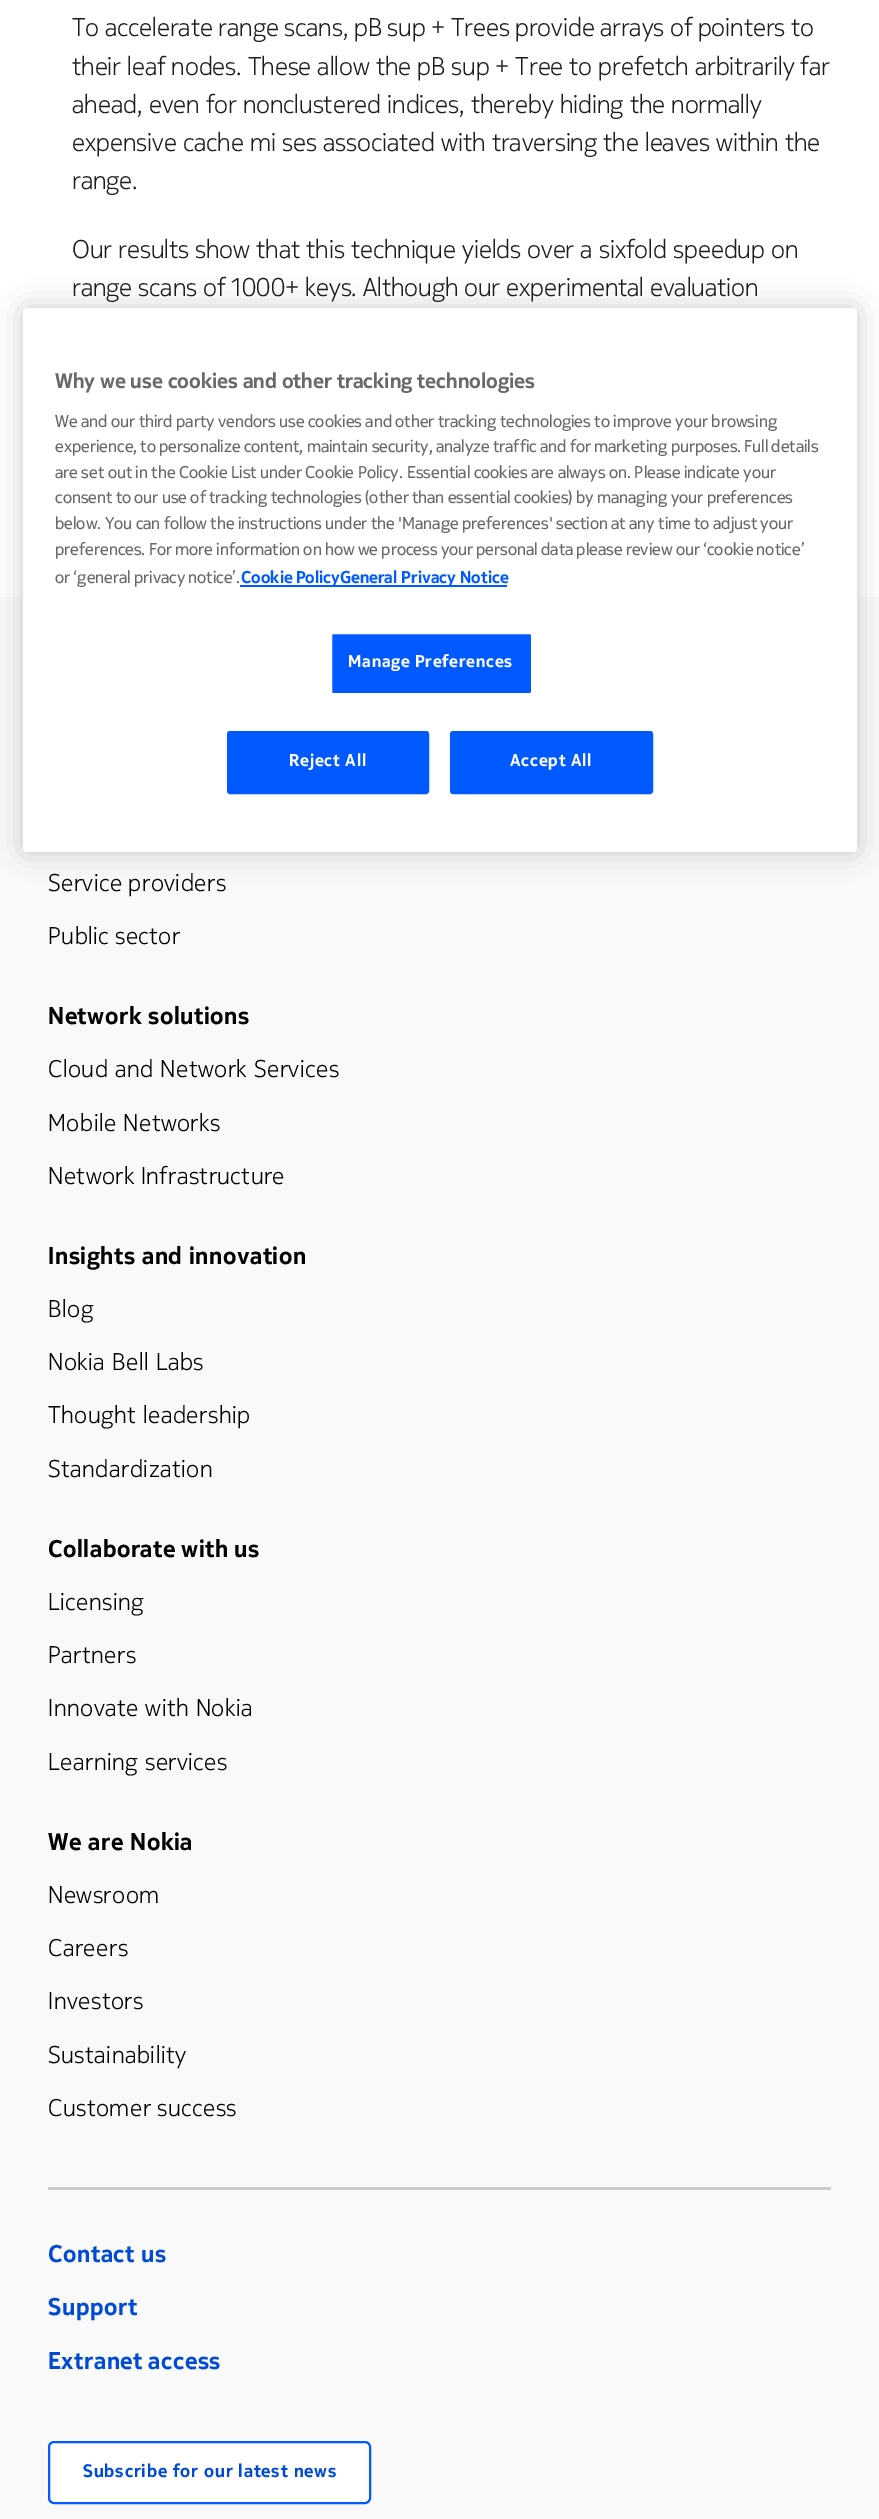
%!PS-Adobe-3.0
%%BoundingBox: 0 0 879 2519
%%LanguageLevel: 3
%%Pages: 1
%%EndComments
%%BeginProlog
/m { moveto } bind def
/f { fill } bind def
/S { stroke } bind def
/q { gsave } bind def
/Q { grestore } bind def
/w { setlinewidth } bind def
/fn { [ exch dup neg 0 0 3 -1 roll 0 0 ] selectfont } def
/tx { moveto show } def
/bx { rectfill } def
/al { dup .setfillconstantalpha .setstrokeconstantalpha } def
/rr { 5 dict begin { /r /h /w /y /x } { exch def } forall
  x r add y moveto x w add y 2 copy h add r arct x w add y h add x 1 index r arct
  x y h add x y r arct x y 2 copy exch w add exch r arct closepath end } def
/sh { 12 dict begin { /a /b /q /h /w /y /x } { exch def } forall gsave /was 0 def
  9 -2 -9 { dup b mul 4 div /e exch def 1 sub .425 mul 2.718 exch exp 1 add a .99 .min exch div /now exch def
    1 1 now sub 1 was sub div sub al /was now def
    w h .min e 2 mul add 0 gt { x e sub y e sub w e 2 mul add h e 2 mul add
      q e add b .6 mul add w h .min 2 div e add .min 0 .max rr fill } if } for grestore end } def
%%EndProlog
%%BeginSetup
<< /PageSize [879 2519] /PageUsesTransparency true >> setpagedevice
%%EndSetup
%%Page: 1 1
0 .pushpdf14devicefilter
0 2519 translate 1 -1 scale
4 setmiterlimit
1 setgray
0 0 879 2519 bx
/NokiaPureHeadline-Light 25.5 fn
0.114 0.118 0.125 setrgbcolor
72 36 m -1 0 32 (To accelerate range scans, pB sup + Trees provide arrays of pointers to) widthshow
72 75 m -0.5 0 32 (their leaf nodes. These allow the pB sup + Tree to prefetch arbitrarily far) widthshow
72 113 m -0.25 0 32 (ahead, even for nonclustered indices, thereby hiding the normally) widthshow
72 151 m -0.25 0 32 (expensive cache mi ses associated with traversing the leaves within the) widthshow
(range.) 72 189 tx
72 258 m -0.25 0 32 (Our results show that this technique yields over a sixfold speedup on) widthshow
72 296 m -0.5 0 32 (range scans of 1000+ keys. Although our experimental evaluation) widthshow
0.976 setgray
0 597 879 1922 bx
/NokiaPureHeadline-Light 24 fn
0 setgray
48 891 m -1 0 32 0.55 0 (Service providers) awidthshow
48 944 m -1 0 32 0.55 0 (Public sector) awidthshow
/NokiaPureHeadline-Bold 24 fn
48 1024 m 0.55 0 (Network solutions) ashow
/NokiaPureHeadline-Light 24 fn
48 1077 m 0.55 0 (Cloud and Network Services) ashow
48 1131 m 0.55 0 (Mobile Networks) ashow
48 1184 m -1 0 32 0.55 0 (Network Infrastructure) awidthshow
/NokiaPureHeadline-Bold 24 fn
48 1264 m 0.55 0 (Insights and innovation) ashow
/NokiaPureHeadline-Light 24 fn
48 1317 m 0.55 0 (Blog) ashow
48 1370 m 0.55 0 (Nokia Bell Labs) ashow
48 1423 m 0.55 0 (Thought leadership) ashow
48 1477 m 0.55 0 (Standardization) ashow
/NokiaPureHeadline-Bold 24 fn
48 1557 m -1 0 32 0.55 0 (Collaborate with us) awidthshow
/NokiaPureHeadline-Light 24 fn
48 1610 m 0.55 0 (Licensing) ashow
48 1663 m 0.55 0 (Partners) ashow
48 1716 m 0.55 0 (Innovate with Nokia) ashow
48 1770 m 0.55 0 (Learning services) ashow
/NokiaPureHeadline-Bold 24 fn
48 1850 m 0.55 0 (We are Nokia) ashow
/NokiaPureHeadline-Light 24 fn
48 1903 m 0.55 0 (Newsroom) ashow
48 1956 m 0.55 0 (Careers) ashow
48 2009 m 0.55 0 (Investors) ashow
48 2063 m 0.55 0 (Sustainability) ashow
48 2116 m -1 0 32 0.55 0 (Customer success) awidthshow
0.8 setgray
48 2187 783 3 bx
/NokiaPureHeadline-Bold 24 fn
0 0.294 0.839 setrgbcolor
48 2262 m 0.55 0 (Contact us) ashow
48 2315 m 0.55 0 (Support) ashow
48 2369 m -1 0 32 0.55 0 (Extranet access) awidthshow
1 setgray
49 2442 321 61 5 rr q f Q
0 0.353 1 setrgbcolor
2 w
S
/NokiaPureHeadline-Bold 18 fn
0 0.294 0.839 setrgbcolor
83 2477 m 0.8 0 (Subscribe for our latest news) ashow
0 setgray
23 308 834 544 4 13.5 0.2 sh
1 setgray
23 308 834 544 4 rr f
/NokiaPureHeadline-Bold 21 fn
0.412 setgray
55 388 m -0.25 0 32 (Why we use cookies and other tracking technologies) widthshow
/NokiaPureHeadline-Regular 17.05 fn
55 427 m -0.25 0 32 (We and our third party vendors use cookies and other tracking technologies to improve your browsing) widthshow
55 452 m -0.6 0 32 (experience, to personalize content, maintain security, analyze traffic and for marketing purposes. Full details) widthshow
55 478 m -0.25 0 32 (are set out in the Cookie List under Cookie Policy.) widthshow
407 478 m -0.25 0 32 (Essential cookies are always on. Please indicate your) widthshow
55 503 m -0.4 0 32 (consent to our use of tracking technologies \(other than essential cookies\) by managing your preferences) widthshow
55 529 m -0.3 0 32 (below. You can follow the instructions under the 'Manage preferences' section at any time to adjust your) widthshow
55 555 m -0.5 0 32 (preferences. For more information on how we process your personal data please review our ‘cookie notice’) widthshow
55 583 m -0.5 0 32 (or ‘general privacy notice’.) widthshow
0 0.353 1 setrgbcolor
240 585 267 2 bx
/NokiaPureHeadline-Bold 17.05 fn
241 583 m -1 0 32 (Cookie Policy) widthshow
(General Privacy Notice) 340 583 tx
331 633 201 61 2 rr q f Q
1 setgray
S
348 667 m -1 0 32 0.8 0 (Manage Preferences) awidthshow
0 0.353 1 setrgbcolor
228 732 200 61 2 rr q f Q
S
1 setgray
289 766 m 0.8 0 (Reject All) ashow
0 0.353 1 setrgbcolor
451 732 201 61 2 rr q f Q
S
1 setgray
510 766 m -0.6 0 32 0.8 0 (Accept All) awidthshow
.poppdf14devicefilter showpage
%%EOF
